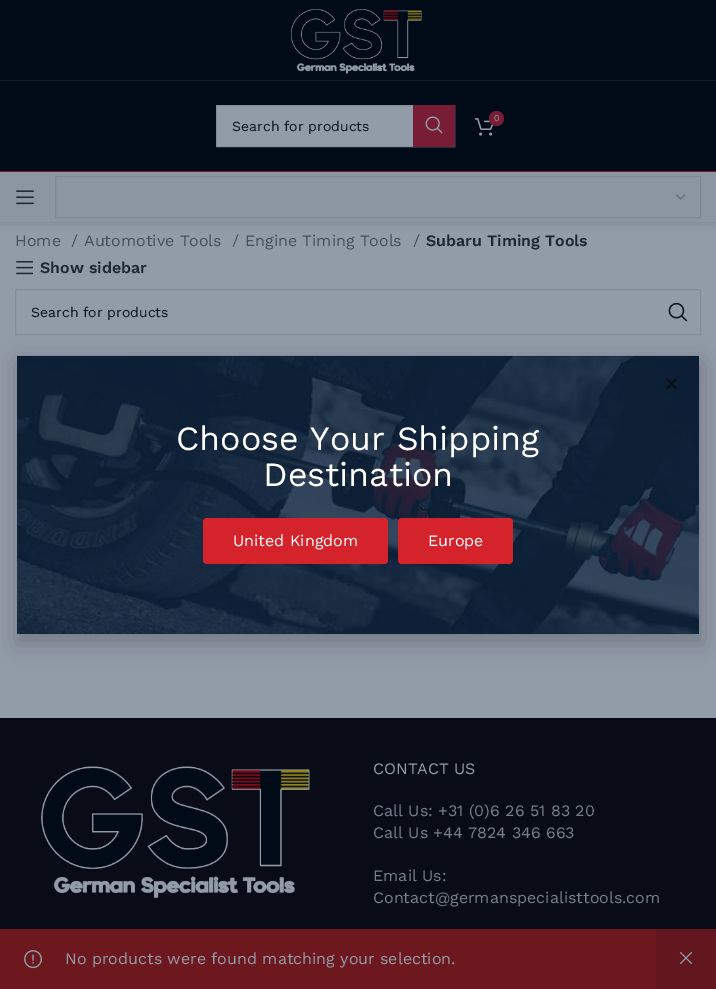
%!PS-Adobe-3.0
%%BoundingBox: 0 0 716 989
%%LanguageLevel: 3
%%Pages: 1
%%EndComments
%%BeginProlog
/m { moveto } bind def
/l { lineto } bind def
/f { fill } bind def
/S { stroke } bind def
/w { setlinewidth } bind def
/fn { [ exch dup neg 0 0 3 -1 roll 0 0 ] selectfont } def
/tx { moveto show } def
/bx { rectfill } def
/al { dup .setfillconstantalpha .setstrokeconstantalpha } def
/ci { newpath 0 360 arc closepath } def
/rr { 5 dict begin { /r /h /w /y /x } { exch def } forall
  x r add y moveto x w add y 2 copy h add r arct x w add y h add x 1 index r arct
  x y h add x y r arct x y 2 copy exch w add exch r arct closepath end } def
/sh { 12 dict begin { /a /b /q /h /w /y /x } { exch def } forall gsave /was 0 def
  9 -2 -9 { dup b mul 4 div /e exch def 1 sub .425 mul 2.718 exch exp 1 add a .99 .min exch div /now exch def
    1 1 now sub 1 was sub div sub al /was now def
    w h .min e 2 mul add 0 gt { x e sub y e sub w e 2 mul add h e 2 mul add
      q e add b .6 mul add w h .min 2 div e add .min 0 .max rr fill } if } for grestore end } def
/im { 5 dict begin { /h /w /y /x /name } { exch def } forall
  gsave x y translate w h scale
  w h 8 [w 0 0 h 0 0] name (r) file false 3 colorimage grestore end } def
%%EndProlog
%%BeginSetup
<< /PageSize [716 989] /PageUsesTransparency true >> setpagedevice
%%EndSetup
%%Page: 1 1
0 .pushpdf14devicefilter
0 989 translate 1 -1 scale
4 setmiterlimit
0.573 0.612 0.663 setrgbcolor
0 0 716 989 bx
0 0.043 0.09 setrgbcolor
0 0 716 80 bx
0.059 0.102 0.145 setrgbcolor
0 80 716 1 bx
(image0.raw) 291 9 131 65 im
0 0.043 0.09 setrgbcolor
0 81 716 90 bx
0.475 0.114 0.216 setrgbcolor
0 171 716 1 bx
(image1.raw) 475 118 19 18 im
496.5 118.5 7.5 ci f
/WorkSans-Regular 9 fn
0.573 0.612 0.663 setrgbcolor
(0) 494 121 tx
217 106 196 40 bx
0.518 0.557 0.604 setrgbcolor
216.5 105.5 238 41 rectstroke
/WorkSans-Regular 14 fn
0.027 0.071 0.118 setrgbcolor
(Search for products) 232 131 tx
0.475 0.114 0.216 setrgbcolor
413 105 42 42 bx
(image2.raw) 425 116 18 18 im
0 0.043 0.09 setrgbcolor
0 173 716 51 0 4 0.1 sh
0.549 0.588 0.635 setrgbcolor
0 172 716 50 bx
0.522 0.561 0.608 setrgbcolor
0 222 716 1 bx
(image3.raw) 16 190 18 15 im
0.42 0.459 0.51 setrgbcolor
1.4 w
676.5 194.5 m 680.5 199 l 685 194.5 l S
0.494 0.533 0.584 setrgbcolor
1 w
55.5 176.5 645 41 rectstroke
/WorkSans-Regular 16 fn
0.267 0.31 0.357 setrgbcolor
(Home) 15 246 tx
(/) 71 246 tx
(Automotive Tools) 84 246 tx
(/) 232 246 tx
(Engine Timing Tools) 245 246 tx
(/) 413 246 tx
/WorkSans-SemiBold 16 fn
0.118 0.157 0.204 setrgbcolor
(Subaru Timing Tools) 426 246 tx
(image4.raw) 16 261 17 14 im
(Show sidebar) 40 273 tx
0.518 0.557 0.604 setrgbcolor
15.5 289.5 685 45 rectstroke
/WorkSans-Regular 14 fn
0.027 0.071 0.118 setrgbcolor
(Search for products) 31 317 tx
(image5.raw) 668 302 20 20 im
0.427 0.094 0.122 setrgbcolor
0 929 656 60 bx
(image6.raw) 24 950 18 19 im
/WorkSans-Regular 16 fn
0.573 0.612 0.663 setrgbcolor
(No products were found matching your selection.) 65 964 tx
0.384 0.09 0.118 setrgbcolor
656 929 60 60 bx
(image7.raw) 679 951 14 14 im
0.035 0.043 0.09 setrgbcolor
0 718 716 211 bx
(image8.raw) 41 766 269 132 im
0.573 0.612 0.663 setrgbcolor
(CONTACT US) 373 774 tx
0.463 0.498 0.549 setrgbcolor
(Call Us: +31 \(0\)6 26 51 83 20) 373 816 tx
(Call Us +44 7824 346 663) 373 838 tx
(Email Us:) 373 881 tx
(Contact@germanspecialisttools.com) 373 903 tx
0 setgray
16 361 688 284 0 11.5 0.2 sh
(image9.raw) 17 355 682 279 im
(image10.raw) 666 378 11 11 im
/WorkSans-Regular 34 fn
1 setgray
(Choose Your Shipping) 176 450 tx
(Destination) 263 486 tx
0.831 0.137 0.169 setrgbcolor
203 518 185 46 4 rr f
/WorkSans-Regular 16 fn
1 setgray
(United Kingdom) 233 546 tx
0.831 0.137 0.169 setrgbcolor
398 518 115 46 4 rr f
1 setgray
(Europe) 428 546 tx
.poppdf14devicefilter showpage
%%EOF
